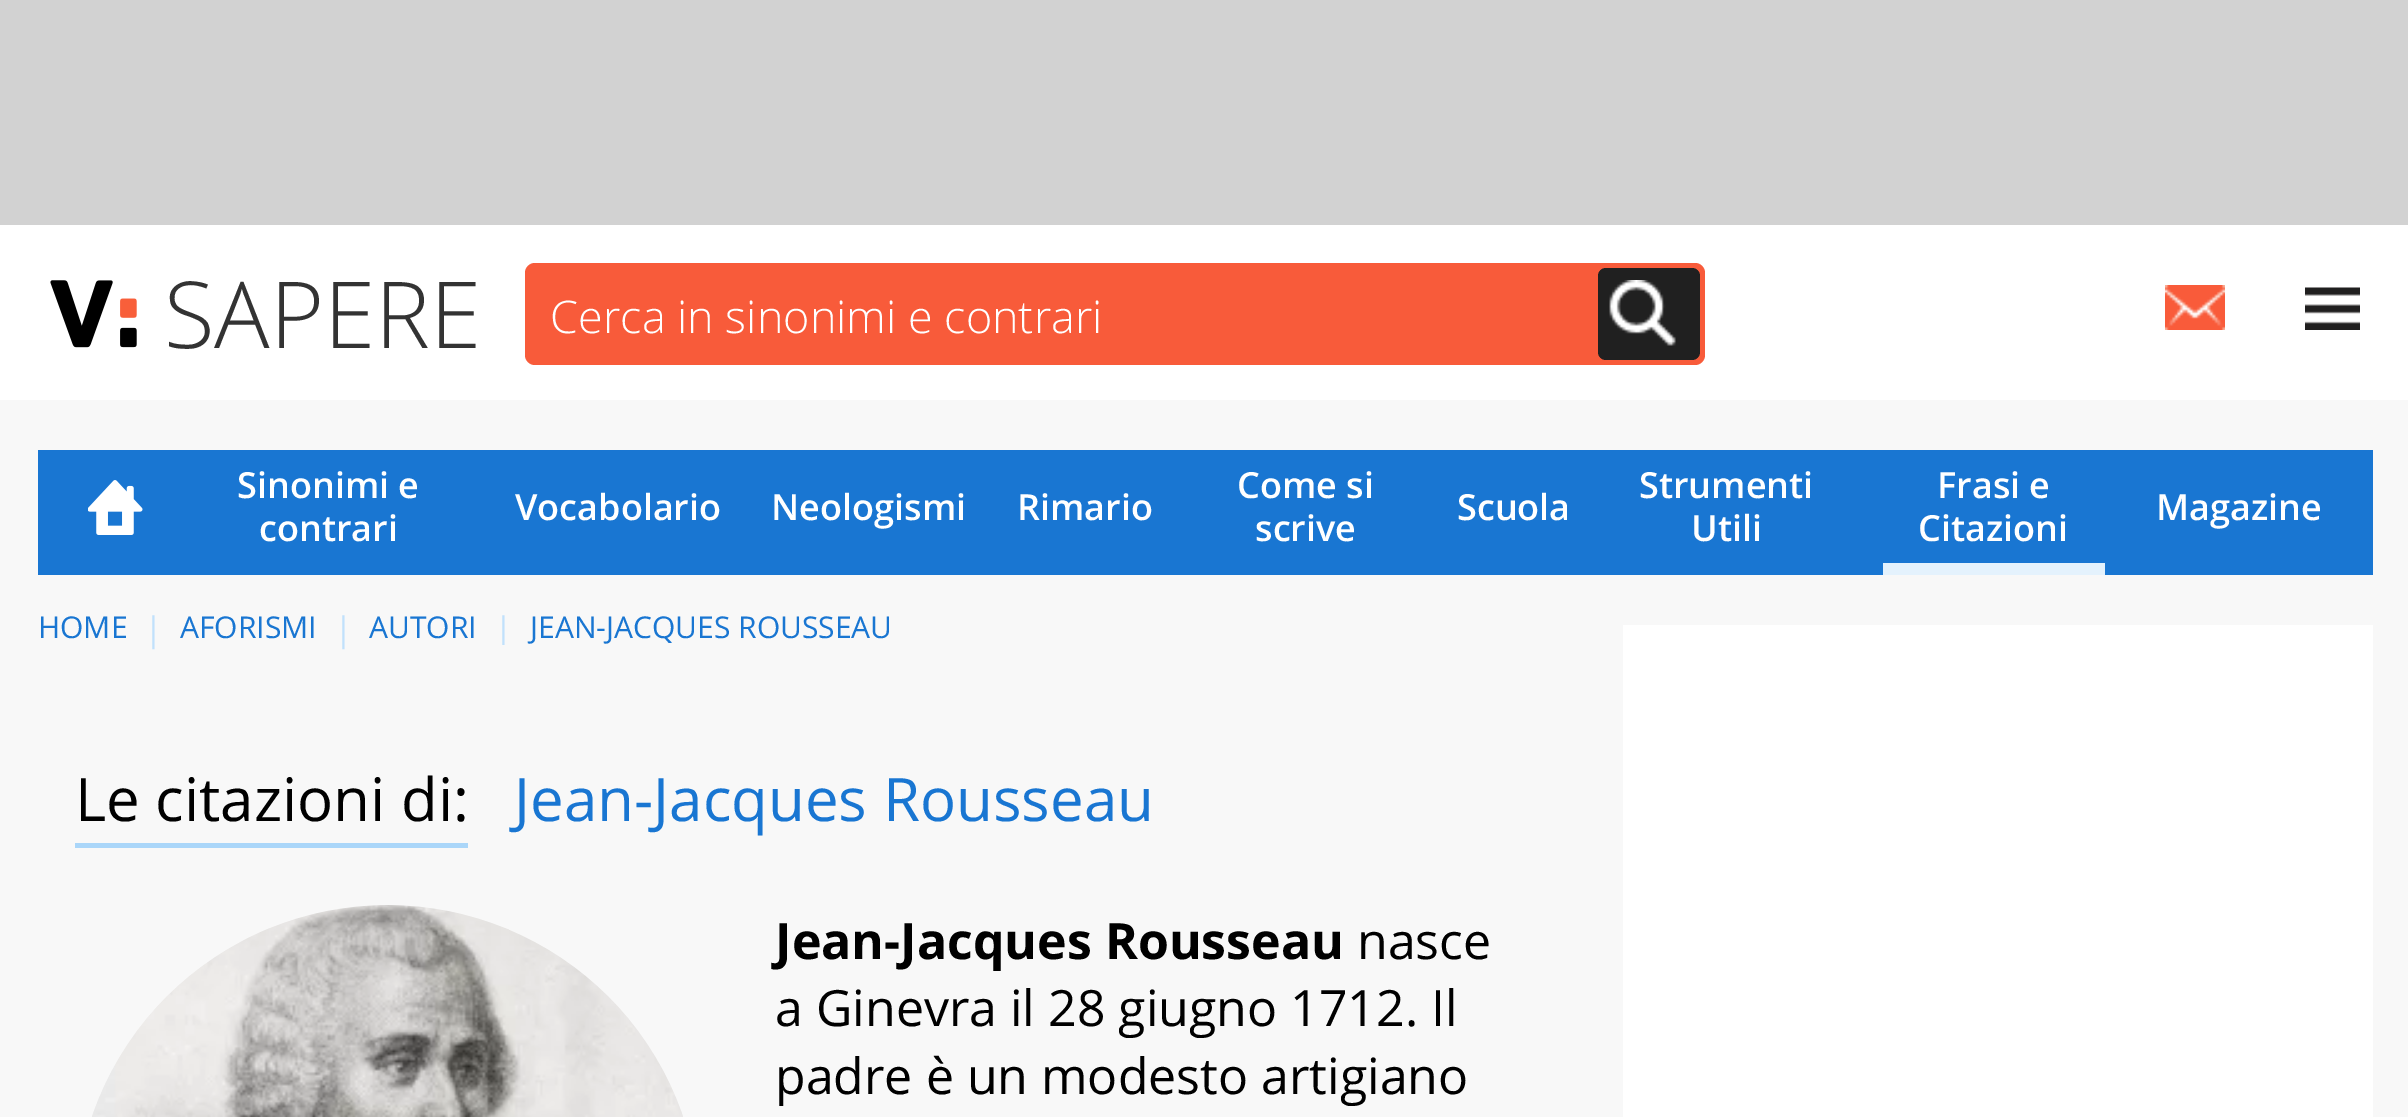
%!PS-Adobe-3.0
%%BoundingBox: 0 0 2408 1117
%%LanguageLevel: 3
%%Pages: 1
%%EndComments
%%BeginProlog
/f { fill } bind def
/q { gsave } bind def
/Q { grestore } bind def
/fn { [ exch dup neg 0 0 3 -1 roll 0 0 ] selectfont } def
/tx { moveto show } def
/bx { rectfill } def
/rr { 5 dict begin { /r /h /w /y /x } { exch def } forall
  x r add y moveto x w add y 2 copy h add r arct x w add y h add x 1 index r arct
  x y h add x y r arct x y 2 copy exch w add exch r arct closepath end } def
/im { 5 dict begin { /h /w /y /x /name } { exch def } forall
  gsave x y translate w h scale
  w h 8 [w 0 0 h 0 0] name (r) file false 3 colorimage grestore end } def
%%EndProlog
%%BeginSetup
<< /PageSize [2408 1117] >> setpagedevice
%%EndSetup
%%Page: 1 1
0 1117 translate 1 -1 scale
4 setmiterlimit
0.824 setgray
0 0 2408 1117 bx
1 setgray
0 225 2408 175 bx
(image0.raw) 50 280 87 68 im
/OpenSans-Light 92.5 fn
0.2 setgray
(SAPERE) 164 348 tx
0.973 0.357 0.227 setrgbcolor
525 263 1180 102 10 rr f
/OpenSans-Light 45 fn
1 setgray
(Cerca in sinonimi e contrari) 550 333 tx
0.125 setgray
1598 268 102 92 8 rr f
(image1.raw) 1609 280 67 66 im
(image2.raw) 2165 285 60 45 im
(image3.raw) 2305 287 55 43 im
0.973 setgray
0 400 2408 717 bx
0.098 0.463 0.824 setrgbcolor
38 450 2335 125 bx
(image4.raw) 88 480 55 55 im
/OpenSans-SemiBold 36 fn
1 setgray
(Sinonimi e) 237 498 tx
(contrari) 259 541 tx
(Vocabolario) 515 520 tx
(Neologismi) 771 520 tx
(Rimario) 1017 520 tx
(Come si) 1237 498 tx
(scrive) 1255 541 tx
(Scuola) 1457 520 tx
(Strumenti) 1639 498 tx
(Utili) 1691 541 tx
0.894 0.949 0.992 setrgbcolor
1883 563 222 12 bx
1 setgray
(Frasi e) 1937 498 tx
(Citazioni) 1918 541 tx
(Magazine) 2156 520 tx
/OpenSans-Regular 30 fn
0.098 0.463 0.824 setrgbcolor
(HOME) 38 638 tx
/OpenSans-Regular 34 fn
0.757 0.882 0.988 setrgbcolor
(|) 144 641 tx
/OpenSans-Regular 30 fn
0.098 0.463 0.824 setrgbcolor
(AFORISMI) 180 638 tx
/OpenSans-Regular 34 fn
0.757 0.882 0.988 setrgbcolor
(|) 334 641 tx
/OpenSans-Regular 30 fn
0.098 0.463 0.824 setrgbcolor
(AUTORI) 369 638 tx
q
478 610 415 35 rectclip
/OpenSans-Regular 34 fn
0.757 0.882 0.988 setrgbcolor
(|) 494 641 tx
Q
(JEAN-JACQUES ROUSSEAU) 530 638 tx
/OpenSans-Regular 60 fn
0 setgray
(Le citazioni di:) 75 821 tx
0.667 0.839 0.976 setrgbcolor
75 843 393 5 bx
0.098 0.463 0.824 setrgbcolor
(Jean-Jacques Rousseau) 514 821 tx
(image5.raw) 92 905 591 212 im
/OpenSans-Bold 50 fn
0 setgray
(Jean-Jacques Rousseau) 775 959 tx
/OpenSans-Regular 50 fn
(nasce) 1357 959 tx
(a Ginevra il 28 giugno 1712. Il) 775 1026 tx
(padre è un modesto artigiano) 775 1094 tx
1 setgray
1623 625 750 492 bx
showpage
%%EOF
